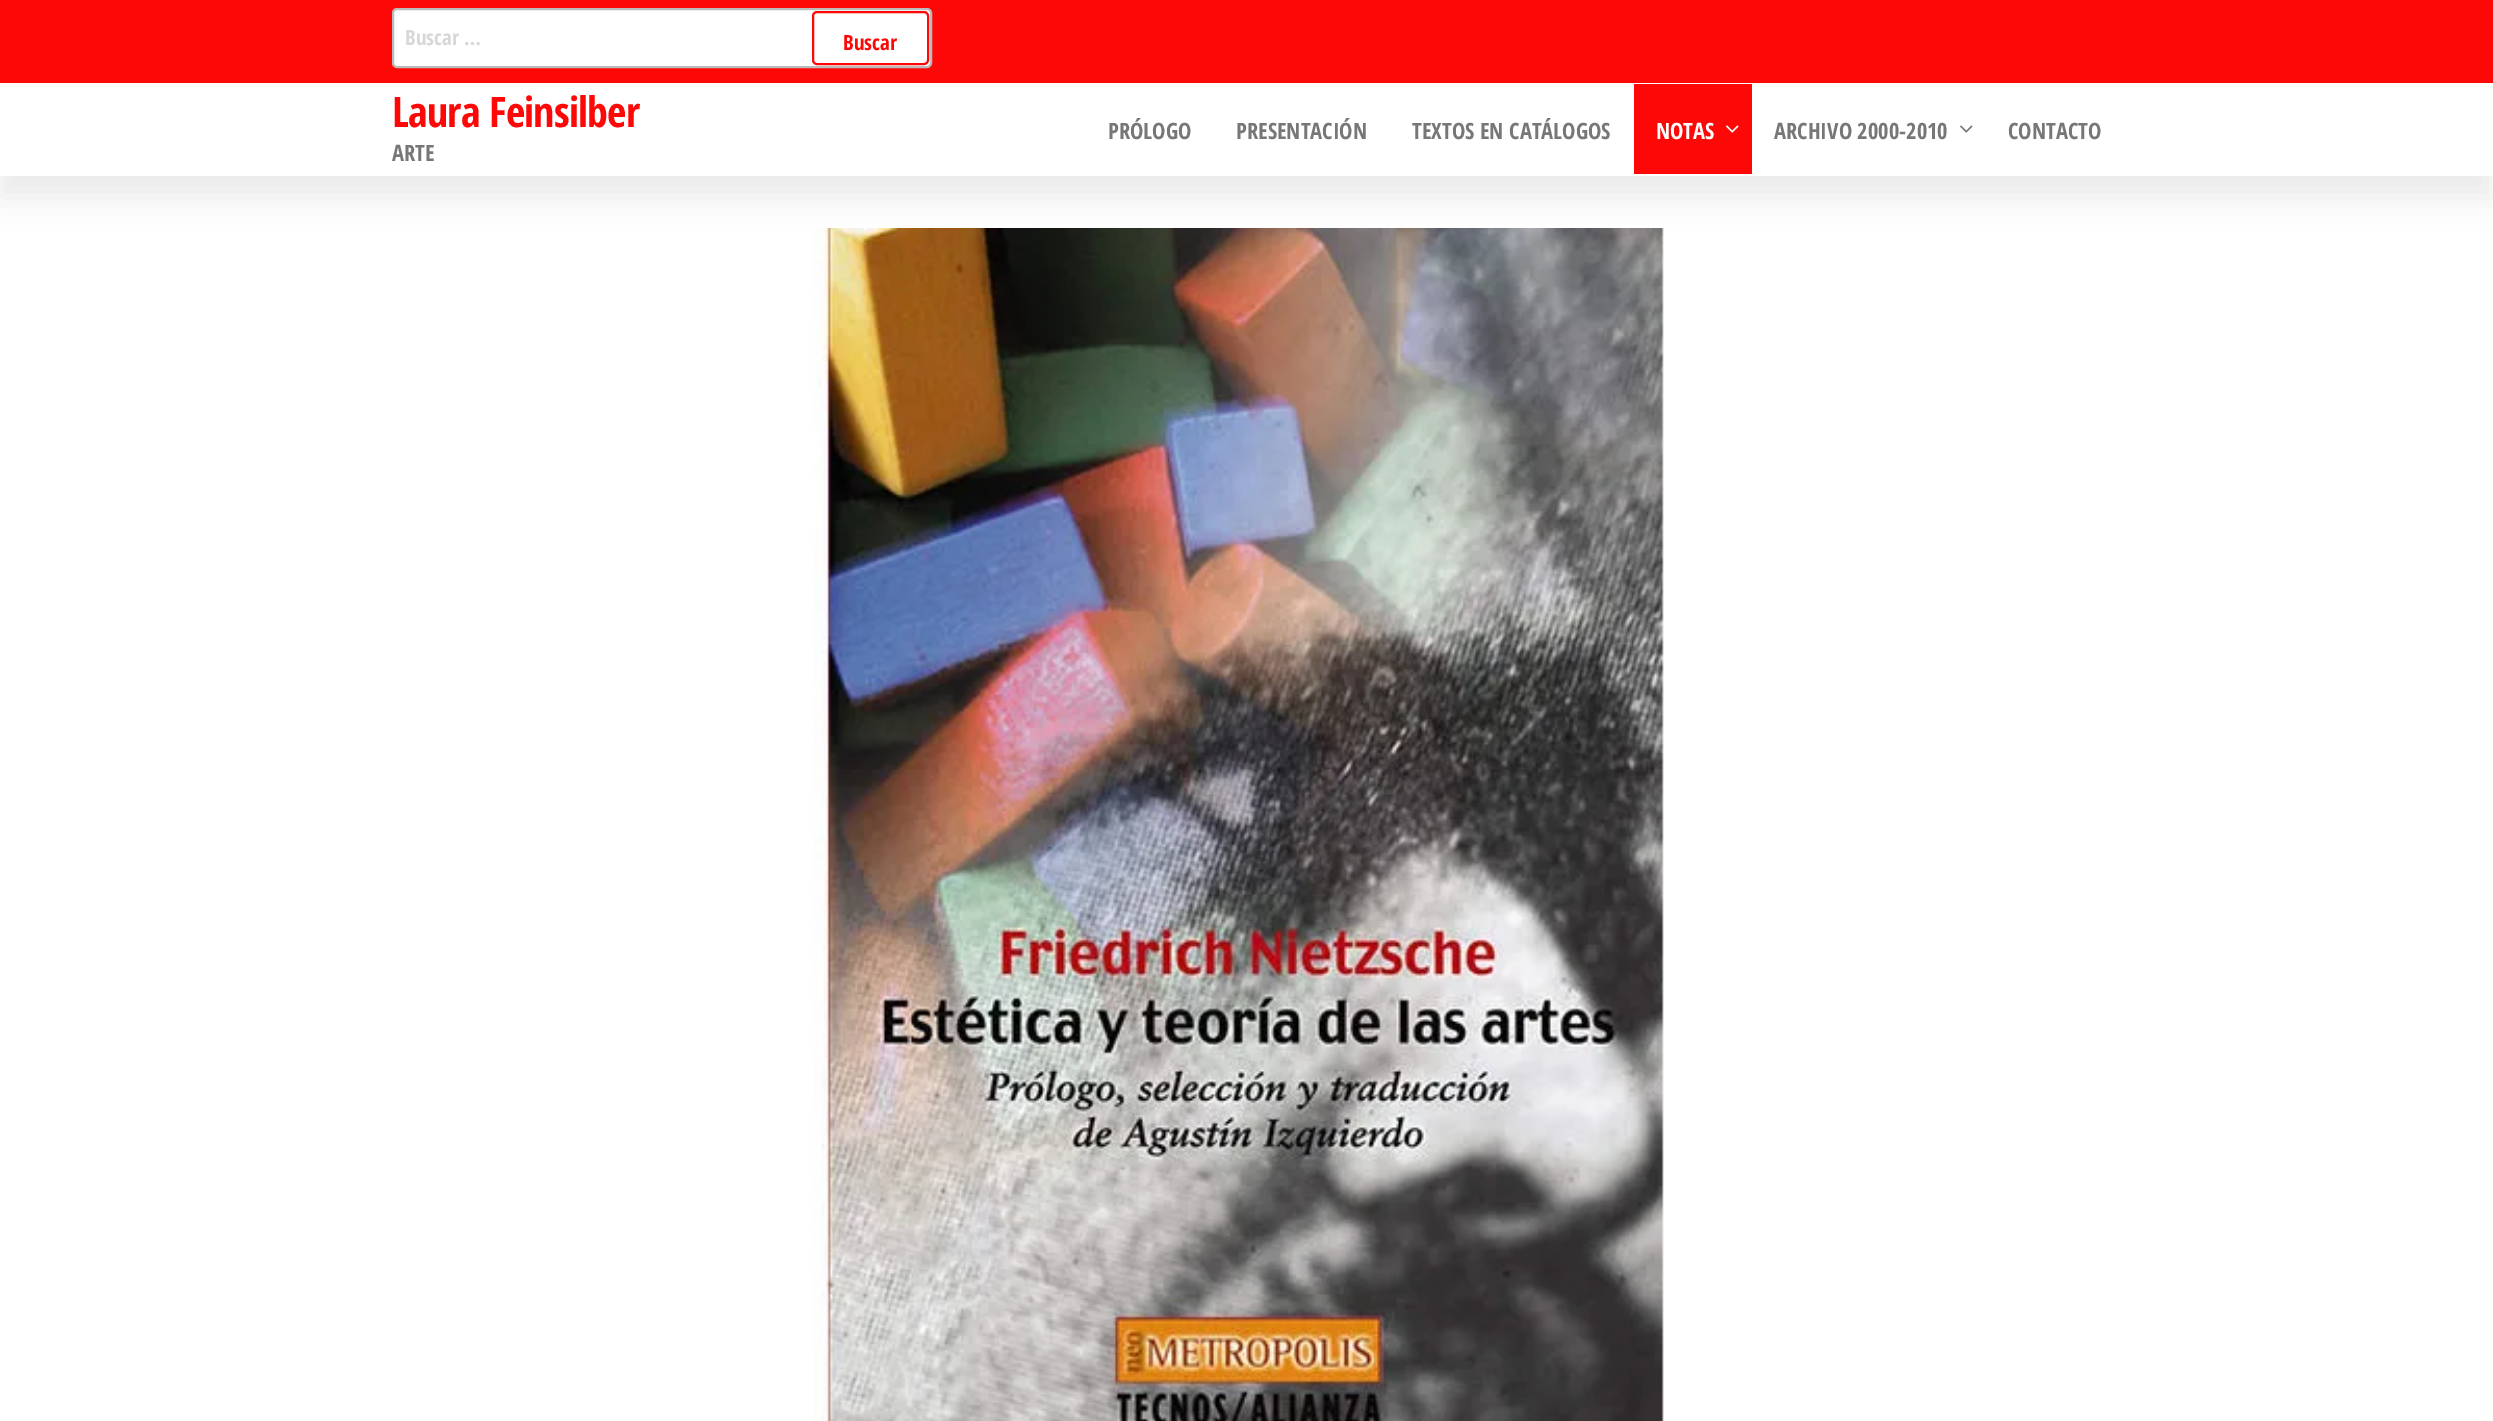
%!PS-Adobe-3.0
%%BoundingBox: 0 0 2493 1421
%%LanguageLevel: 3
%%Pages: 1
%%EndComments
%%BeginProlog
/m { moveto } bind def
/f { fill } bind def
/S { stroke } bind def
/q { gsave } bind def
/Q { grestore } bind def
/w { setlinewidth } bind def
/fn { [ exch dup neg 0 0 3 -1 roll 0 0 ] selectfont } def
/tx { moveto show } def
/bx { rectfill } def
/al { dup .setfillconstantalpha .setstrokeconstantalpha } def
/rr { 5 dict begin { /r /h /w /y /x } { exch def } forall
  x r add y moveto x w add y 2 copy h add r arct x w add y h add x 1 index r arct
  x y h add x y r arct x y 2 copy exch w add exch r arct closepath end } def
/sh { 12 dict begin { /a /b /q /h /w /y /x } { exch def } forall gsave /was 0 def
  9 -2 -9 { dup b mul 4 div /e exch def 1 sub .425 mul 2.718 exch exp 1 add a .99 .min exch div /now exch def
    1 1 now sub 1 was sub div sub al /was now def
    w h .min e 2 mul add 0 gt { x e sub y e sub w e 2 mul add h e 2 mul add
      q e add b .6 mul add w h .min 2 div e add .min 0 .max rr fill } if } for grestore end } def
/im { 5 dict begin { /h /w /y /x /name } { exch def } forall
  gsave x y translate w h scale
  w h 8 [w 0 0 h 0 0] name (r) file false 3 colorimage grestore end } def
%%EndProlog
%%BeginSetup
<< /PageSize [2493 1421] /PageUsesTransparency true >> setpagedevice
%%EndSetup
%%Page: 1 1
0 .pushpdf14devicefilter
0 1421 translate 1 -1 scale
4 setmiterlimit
1 setgray
0 0 2493 1421 bx
0 setgray
0 104 2493 93 0 15 0.08 sh
0.992 0.027 0.027 setrgbcolor
0 0 2493 83 bx
1 setgray
393 9 538 58 4 rr q f Q
0.733 setgray
2 w
S
/OpenSansCondensed-Bold 21 fn
0.843 setgray
(Buscar …) 405 45 tx
0.992 0.027 0.027 setrgbcolor
813 12 115 52 4 rr S
(Buscar) 843 50 tx
1 setgray
0 87 2493 89 bx
/OpenSansCondensed-Bold 42 fn
0.992 0.027 0.027 setrgbcolor
392 127 m -0.8 0 (Laura Feinsilber) ashow
/OpenSansCondensed-Bold 22.5 fn
0.467 setgray
(ARTE) 392 161 tx
(PRÓLOGO) 1108 139 tx
(PRESENTACIÓN) 1236 139 tx
(TEXTOS EN CATÁLOGOS) 1412 139 tx
0.992 0.027 0.027 setrgbcolor
1634 84 118 90 bx
1 setgray
(NOTAS) 1656 139 tx
(image0.raw) 1726 125 13 8 im
0.467 setgray
(ARCHIVO 2000-2010) 1774 139 tx
(image1.raw) 1960 125 13 8 im
(CONTACTO) 2008 139 tx
(image2.raw) 813 228 851 1193 im
.poppdf14devicefilter showpage
%%EOF
